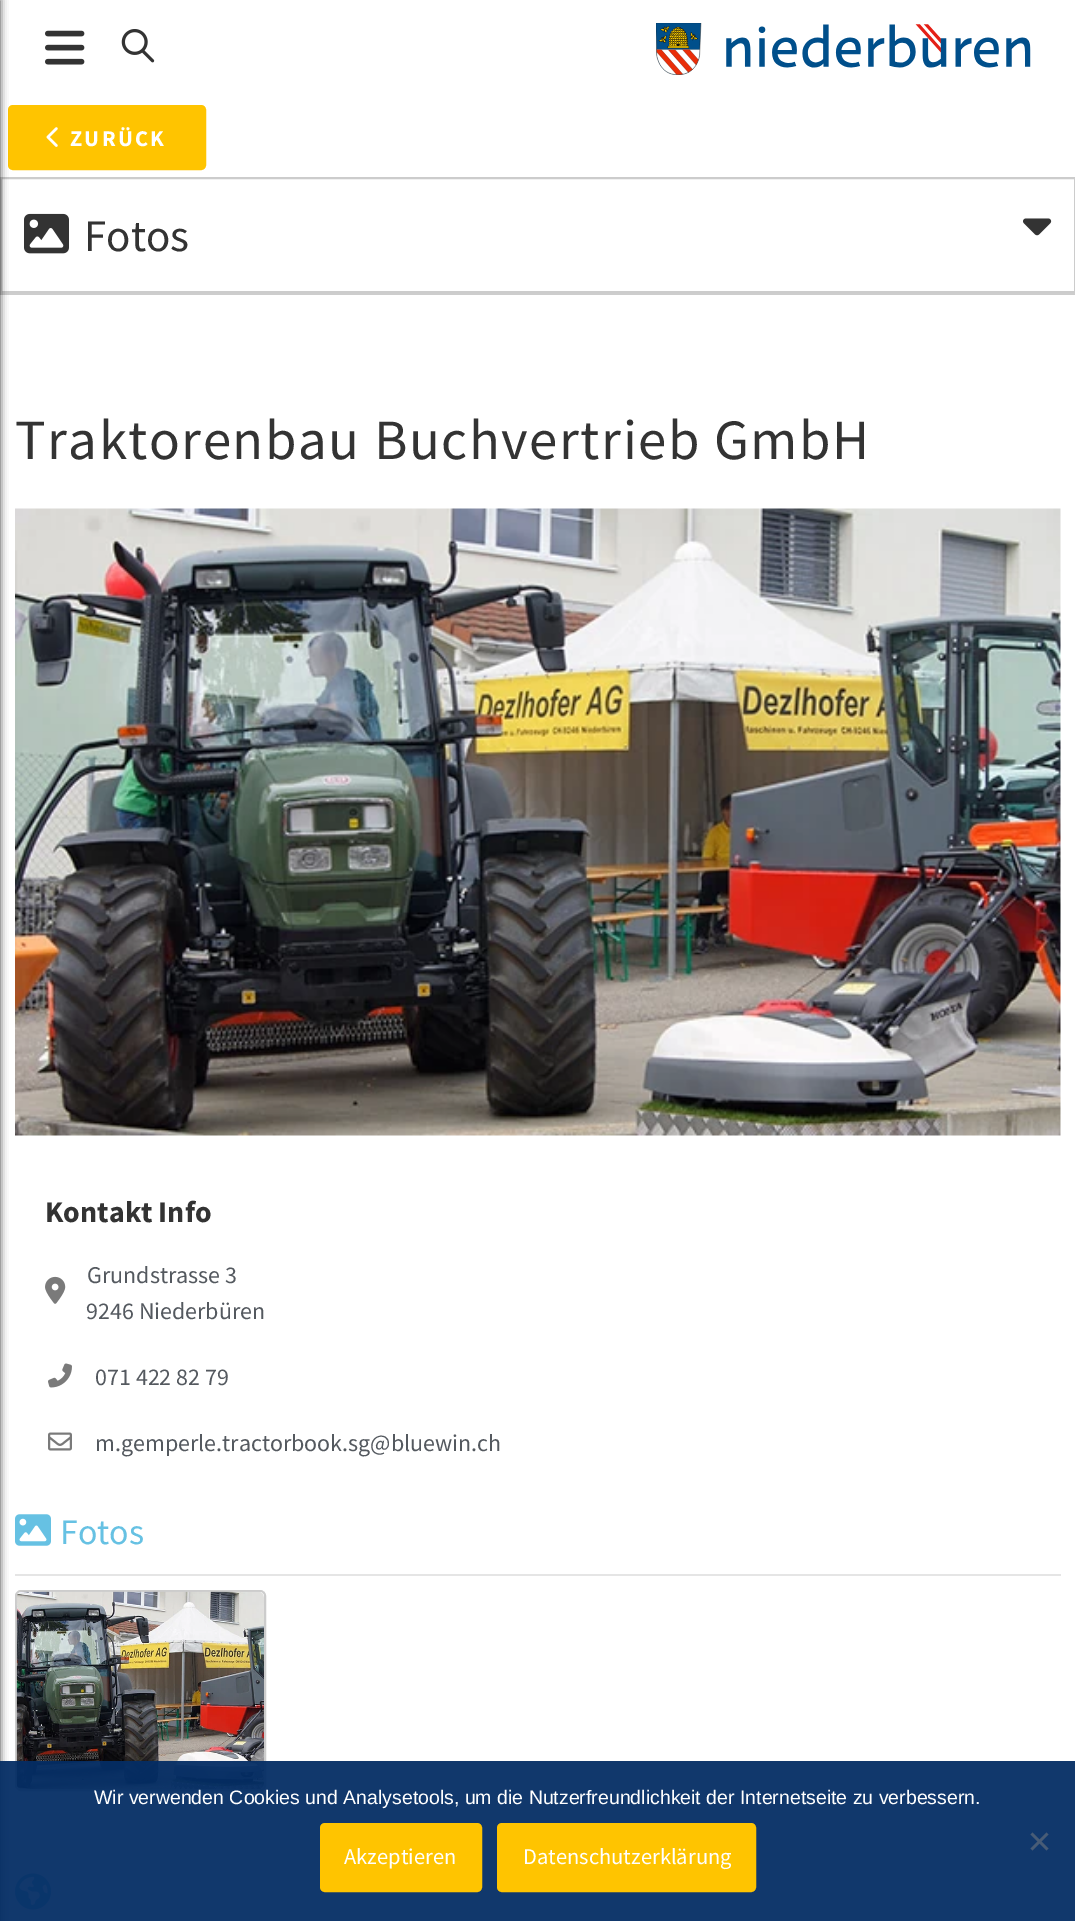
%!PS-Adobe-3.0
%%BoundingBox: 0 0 1075 1921
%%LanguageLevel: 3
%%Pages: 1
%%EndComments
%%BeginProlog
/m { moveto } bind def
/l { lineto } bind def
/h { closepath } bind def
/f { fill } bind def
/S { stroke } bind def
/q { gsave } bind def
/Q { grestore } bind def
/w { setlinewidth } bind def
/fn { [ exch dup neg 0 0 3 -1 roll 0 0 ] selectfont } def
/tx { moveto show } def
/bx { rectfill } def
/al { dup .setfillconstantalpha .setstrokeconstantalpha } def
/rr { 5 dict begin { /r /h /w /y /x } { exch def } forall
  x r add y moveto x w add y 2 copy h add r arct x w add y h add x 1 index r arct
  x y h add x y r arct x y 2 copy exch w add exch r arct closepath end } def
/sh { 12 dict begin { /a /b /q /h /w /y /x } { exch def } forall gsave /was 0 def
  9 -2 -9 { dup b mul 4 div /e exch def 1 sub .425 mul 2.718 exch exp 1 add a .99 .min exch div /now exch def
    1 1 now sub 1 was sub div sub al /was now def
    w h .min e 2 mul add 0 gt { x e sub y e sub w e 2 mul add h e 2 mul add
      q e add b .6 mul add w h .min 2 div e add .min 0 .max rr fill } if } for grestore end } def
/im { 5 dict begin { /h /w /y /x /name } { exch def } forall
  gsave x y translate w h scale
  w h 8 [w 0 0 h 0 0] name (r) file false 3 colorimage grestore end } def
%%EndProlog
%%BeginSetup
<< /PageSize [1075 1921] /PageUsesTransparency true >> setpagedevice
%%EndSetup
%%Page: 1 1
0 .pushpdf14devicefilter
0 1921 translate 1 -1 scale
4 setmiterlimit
1 setgray
0 0 1075 1921 bx
1 0.769 0 setrgbcolor
9.5 106.5 195 62 3.5 rr q f Q
3 w
S
0.804 setgray
0 293 1075 2 bx
0.8 setgray
2 w
1 178 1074 114 rectstroke
0 setgray
-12 0 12 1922 0 4 0.75 sh
(image0.raw) 45 30 40 35 im
(image1.raw) 121 29 34 34 im
(image2.raw) 656 23 375 52 im
(image3.raw) 46 127 12 20 im
/SourceSansPro-Bold 22.5 fn
1 setgray
70 146 m 2.25 0 (ZURÜCK) ashow
(image4.raw) 24 213 45 41 im
/SourceSansPro-Regular 45 fn
0.2 setgray
(Fotos) 84 251 tx
(image5.raw) 1023 218 29 18 im
/SourceSansPro-Regular 57 fn
15 459 m 1.5 0 (Traktorenbau Buchvertrieb GmbH) ashow
(image6.raw) 15 508 1046 628 im
/SourceSansPro-Bold 30 fn
(Kontakt Info) 45 1222 tx
(image7.raw) 45 1276 21 28 im
/SourceSansPro-Regular 24 fn
0.329 0.349 0.373 setrgbcolor
(Grundstrasse 3) 87 1283 tx
(9246 Niederbüren) 86 1319 tx
(image8.raw) 48 1363 24 25 im
(071 422 82 79) 95 1385 tx
(image9.raw) 48 1432 24 19 im
(m.gemperle.tractorbook.sg@bluewin.ch) 95 1451 tx
(image10.raw) 15 1514 36 32 im
/SourceSansPro-Regular 36 fn
0.4 0.757 0.89 setrgbcolor
(Fotos) 60 1544 tx
0.898 setgray
15 1574 1046 2 bx
0.8 setgray
16 1591 249 199 5 rr S
(image11.raw) 16 1591 248 199 im
(image12.raw) 15 1873 36 37 im
0.95 al
0.016 0.176 0.392 setrgbcolor
0 1761 1075 160 bx
/LiberationSans-Regular 19.5 fn
1 al
1 setgray
(Wir verwenden Cookies und Analysetools, um die Nutzerfreundlichkeit der Internetseite zu verbessern.) 94 1804 tx
0.282 0.361 0.463 setrgbcolor
1046.5 1832.5 m 1048.5 1834.5 l 1032.5 1850.5 l 1030.5 1848.5 l h f
1030.5 1834.5 m 1032.5 1832.5 l 1048.5 1848.5 l 1046.5 1850.5 l h f
1 0.769 0 setrgbcolor
321.5 1824.5 159 66 3.5 rr q f Q
3 w
S
/SourceSansPro-Regular 22.5 fn
1 setgray
(Akzeptieren) 344 1864 tx
1 0.769 0 setrgbcolor
498.5 1824.5 256 66 3.5 rr q f Q
S
1 setgray
(Datenschutzerklärung) 523 1864 tx
.poppdf14devicefilter showpage
%%EOF
